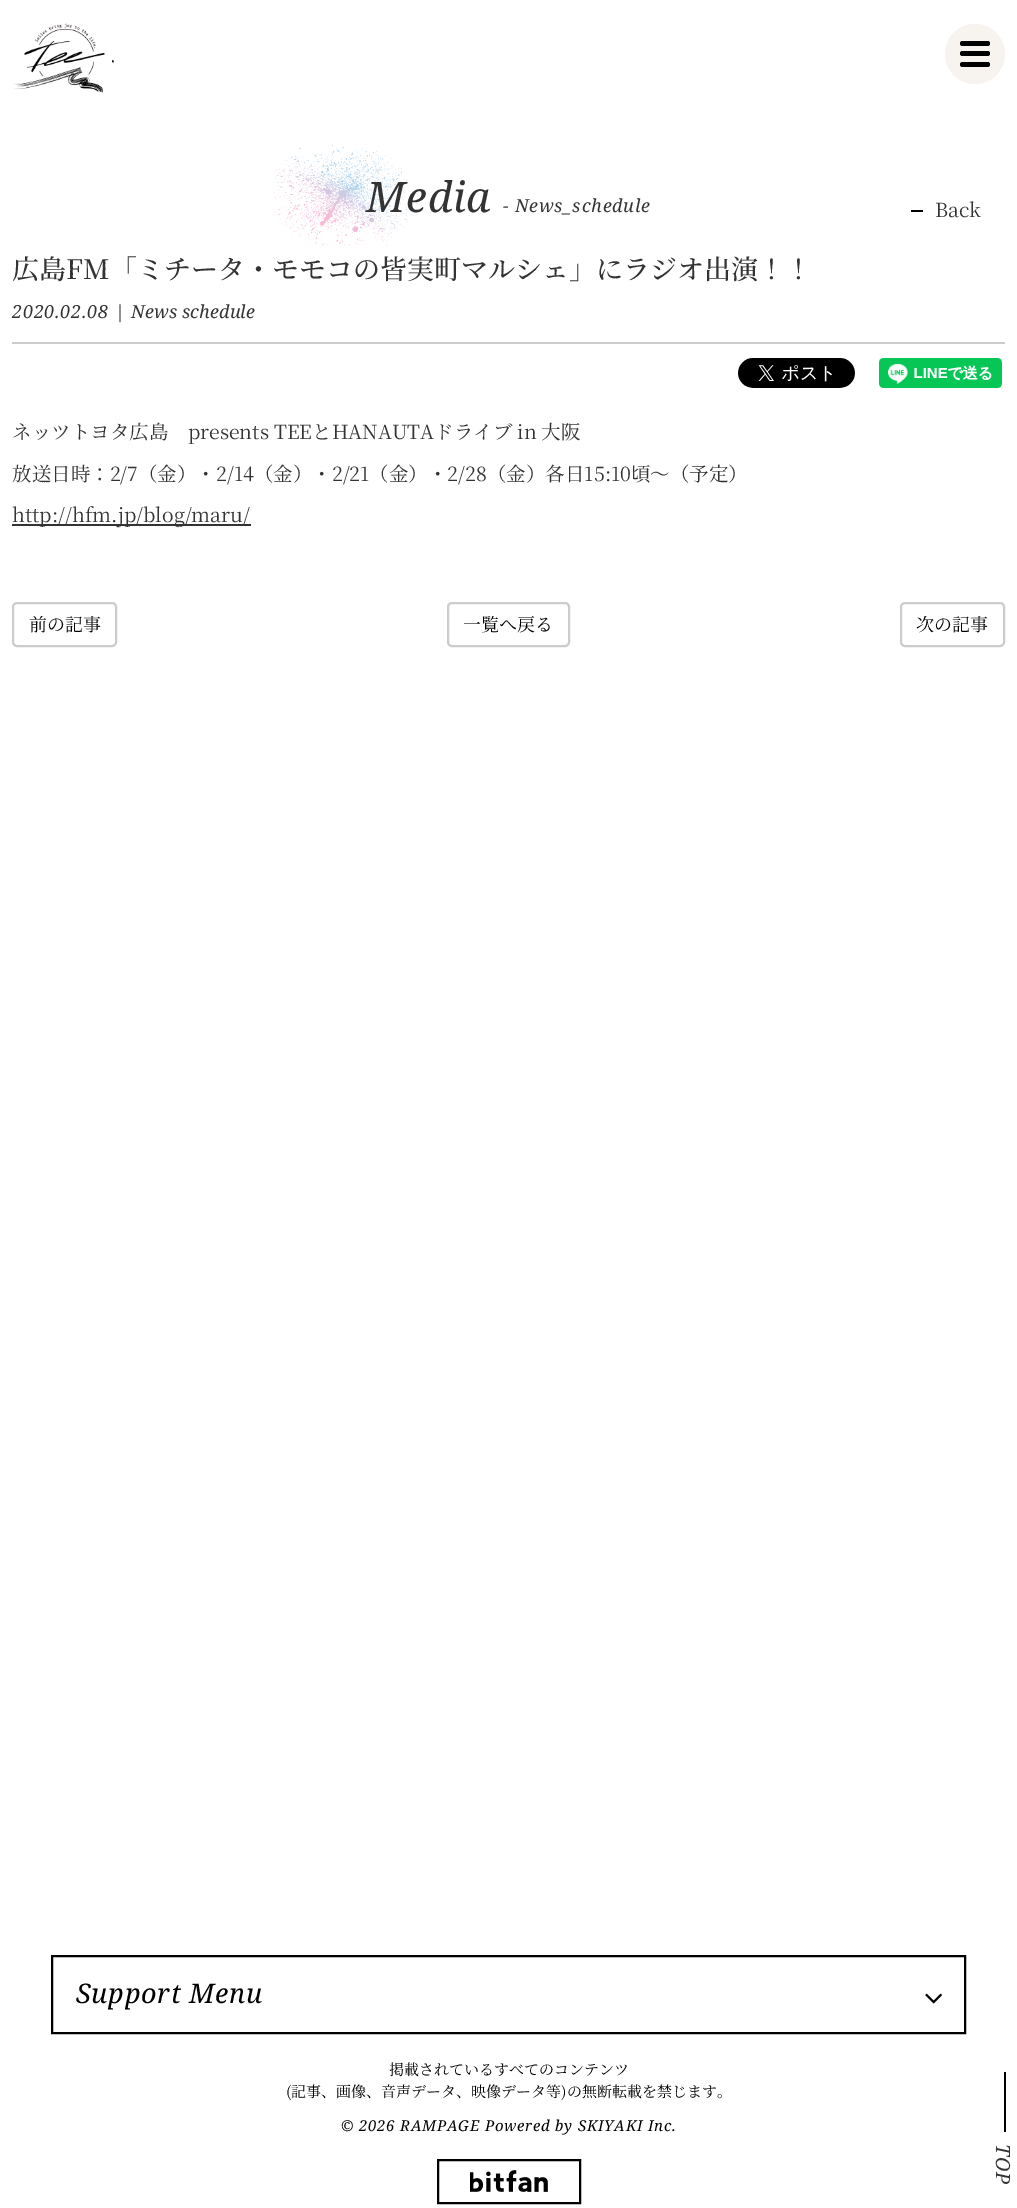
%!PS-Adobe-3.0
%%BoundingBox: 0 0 1017 2208
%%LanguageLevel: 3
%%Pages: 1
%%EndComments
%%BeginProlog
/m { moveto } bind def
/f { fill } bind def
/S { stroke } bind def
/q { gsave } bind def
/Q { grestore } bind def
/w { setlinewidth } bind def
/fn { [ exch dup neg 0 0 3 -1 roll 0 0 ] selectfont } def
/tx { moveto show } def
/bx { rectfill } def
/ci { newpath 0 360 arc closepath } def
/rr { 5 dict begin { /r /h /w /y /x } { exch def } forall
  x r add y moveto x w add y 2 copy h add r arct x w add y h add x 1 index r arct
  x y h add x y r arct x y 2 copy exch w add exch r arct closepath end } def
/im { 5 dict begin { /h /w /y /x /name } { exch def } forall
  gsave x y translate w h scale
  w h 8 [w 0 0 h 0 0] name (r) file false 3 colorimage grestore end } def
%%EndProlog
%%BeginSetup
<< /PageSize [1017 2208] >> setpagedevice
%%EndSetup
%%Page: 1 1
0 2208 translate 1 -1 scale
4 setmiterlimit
1 setgray
0 0 1017 2208 bx
(image0.raw) 271 145 137 102 im
/NotoSerif-Italic 42 fn
0.2 setgray
366 212 m 0.75 0 (Media) ashow
/NotoSerif-Italic 18 fn
503 212 m 0.75 0 (- News_schedule) ashow
0 setgray
911 210 12 2 bx
/NotoSerifJP-Regular 19.5 fn
0.2 setgray
(Back) 935 217 tx
/NotoSerifJP-Medium 27 fn
(広島FM「ミチータ・モモコの皆実町マルシェ」にラジオ出演！！) 12 279 tx
/NotoSerif-Italic 18 fn
12 318 m 0.75 0 (2020.02.08) ashow
115 318 m 0.1 0 (|) ashow
131 318 m 0.1 0 (News schedule) ashow
0.8 setgray
12 342 993 2 bx
(image1.raw) 738 358 117 30 im
(image2.raw) 879 358 123 30 im
/NotoSerifJP-Regular 19.5 fn
0.2 setgray
(ネッツトヨタ広島　presents TEEとHANAUTAドライブ in 大阪) 12 439 tx
(放送日時：2/7（金）・2/14（金）・2/21（金）・2/28（金）各日15:10頃～（予定）) 12 481 tx
12 524 239 2 bx
(http://hfm.jp/blog/maru/) 12 522 tx
0.8 setgray
2 w
13 603 103 43 4 rr S
/NotoSerifJP-Regular 18 fn
0 setgray
(前の記事) 29 631 tx
0.8 setgray
448 603 121 43 4 rr S
0 setgray
(一覧へ戻る) 463 631 tx
0.8 setgray
901 603 103 43 4 rr S
0 setgray
(次の記事) 916 631 tx
52 1956 913 77 rectstroke
/NotoSerif-Italic 27 fn
76 2003 m 0.75 0 (Support Menu) ashow
(image3.raw) 925 1993 17 11 im
/NotoSerifJP-Regular 15 fn
(掲載されているすべてのコンテンツ) 389 2075 tx
(\(記事、画像、音声データ、映像データ等\)の無断転載を禁じます。) 286 2097 tx
/NotoSerif-Italic 15 fn
341 2131 m 0.75 0 (© 2026 RAMPAGE Powered by SKIYAKI Inc.) ashow
438 2160 142 43 rectstroke
(image4.raw) 470 2170 78 22 im
(image5.raw) 13 23 101 70 im
0.969 0.957 0.941 setrgbcolor
975 54 30 ci f
0 setgray
960 41 30 5 2.5 rr f
960 51 30 5 2.5 rr f
960 62 30 5 2.5 rr f
1004 2072 2 60 bx
/NotoSerif-Italic 19.5 fn
0.2 setgray
q 996 2144 translate 90 rotate 0 0 m 0.75 0 (TOP) ashow Q
showpage
%%EOF
